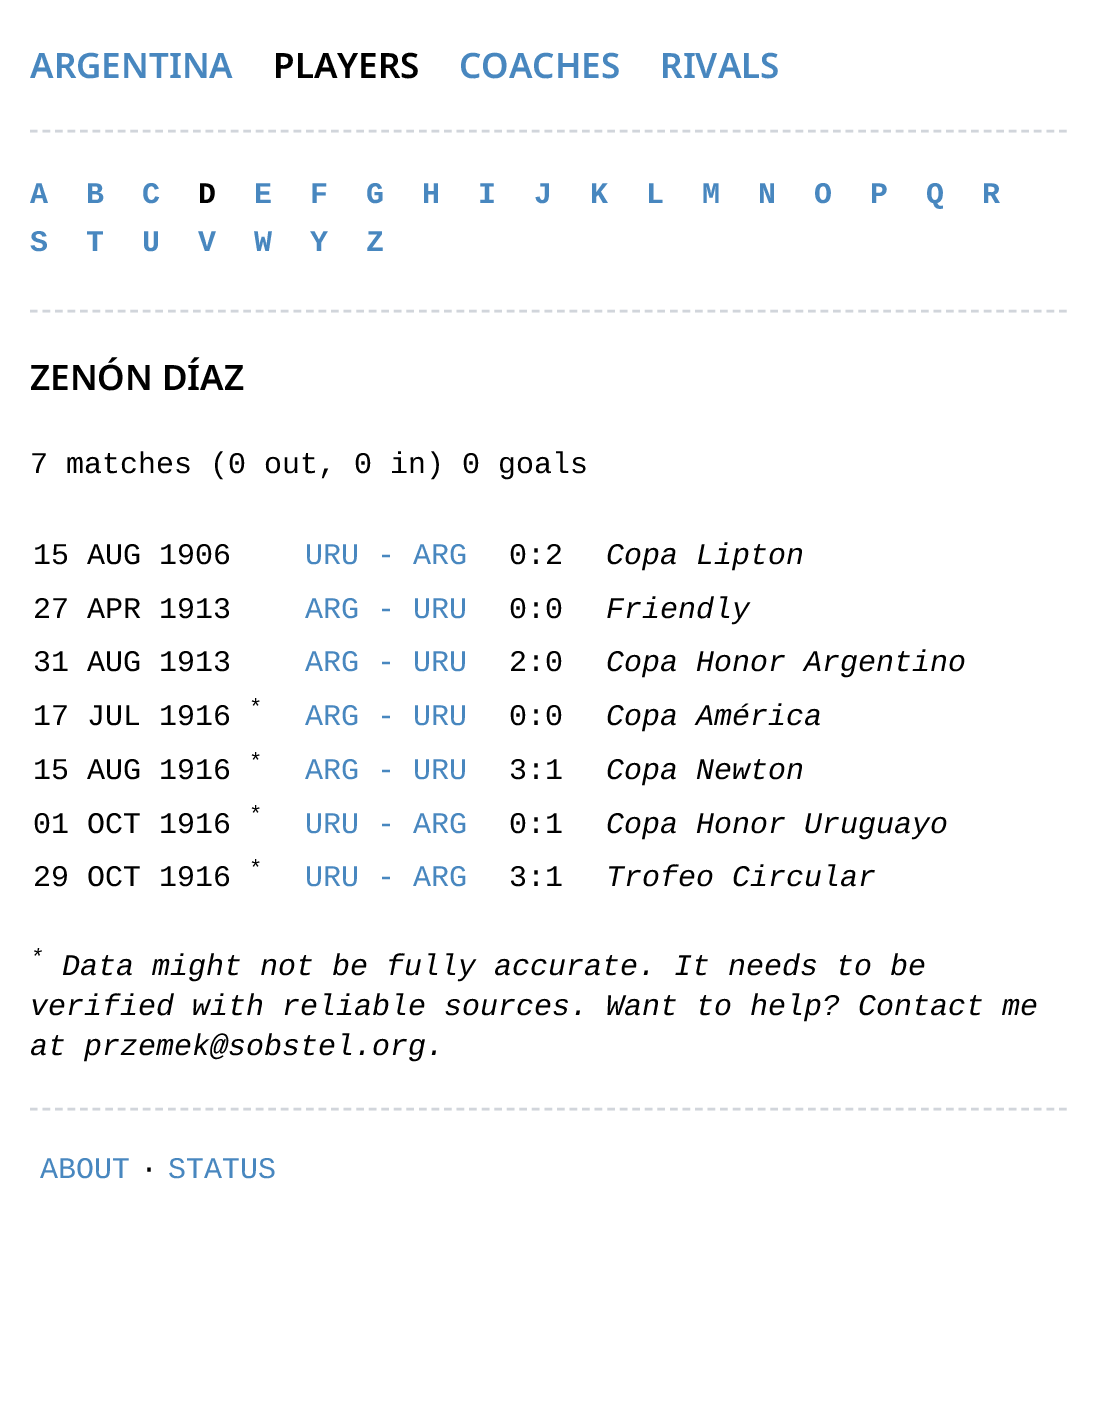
%!PS-Adobe-3.0
%%BoundingBox: 0 0 1096 1409
%%LanguageLevel: 3
%%Pages: 1
%%EndComments
%%BeginProlog
/m { moveto } bind def
/l { lineto } bind def
/S { stroke } bind def
/w { setlinewidth } bind def
/fn { [ exch dup neg 0 0 3 -1 roll 0 0 ] selectfont } def
/tx { moveto show } def
/bx { rectfill } def
%%EndProlog
%%BeginSetup
<< /PageSize [1096 1409] >> setpagedevice
%%EndSetup
%%Page: 1 1
0 1409 translate 1 -1 scale
4 setmiterlimit
1 setgray
0 0 1096 1409 bx
0.82 0.835 0.859 setrgbcolor
2.5 w
[7.5 5.05] 0 setdash
30 131 m 1067.5 131 l S
/NotoSans-SemiBold 35 fn
0.282 0.529 0.749 setrgbcolor
(ARGENTINA) 30 78 tx
0 setgray
(PLAYERS) 273 78 tx
0.282 0.529 0.749 setrgbcolor
(COACHES) 459 78 tx
(RIVALS) 660 78 tx
0.82 0.835 0.859 setrgbcolor
30 311 m 1067.5 311 l S
/LiberationMono-Bold 30 fn
0.282 0.529 0.749 setrgbcolor
(A) 30 203 tx
(B) 86 203 tx
(C) 142 203 tx
0 setgray
(D) 198 203 tx
0.282 0.529 0.749 setrgbcolor
(E) 254 203 tx
(F) 310 203 tx
(G) 366 203 tx
(H) 422 203 tx
(I) 478 203 tx
(J) 534 203 tx
(K) 590 203 tx
(L) 646 203 tx
(M) 702 203 tx
(N) 758 203 tx
(O) 814 203 tx
(P) 870 203 tx
(Q) 926 203 tx
(R) 982 203 tx
(S) 30 251 tx
(T) 86 251 tx
(U) 142 251 tx
(V) 198 251 tx
(W) 254 251 tx
(Y) 310 251 tx
(Z) 366 251 tx
/NotoSans-SemiBold 35 fn
0 setgray
(ZENÓN DÍAZ) 30 390 tx
/LiberationMono-Regular 30 fn
(7 matches \(0 out, 0 in\) 0 goals) 30 473 tx
(15 AUG 1906) 33 564 tx
0.282 0.529 0.749 setrgbcolor
(URU - ARG) 305 564 tx
0 setgray
(0:2) 509 564 tx
/LiberationMono-Italic 30 fn
(Copa Lipton) 606 564 tx
/LiberationMono-Regular 30 fn
(27 APR 1913) 33 618 tx
0.282 0.529 0.749 setrgbcolor
(ARG - URU) 305 618 tx
0 setgray
(0:0) 509 618 tx
/LiberationMono-Italic 30 fn
(Friendly) 606 618 tx
/LiberationMono-Regular 30 fn
(31 AUG 1913) 33 671 tx
0.282 0.529 0.749 setrgbcolor
(ARG - URU) 305 671 tx
0 setgray
(2:0) 509 671 tx
/LiberationMono-Italic 30 fn
(Copa Honor Argentino) 606 671 tx
/LiberationMono-Regular 22 fn
(*) 249 714 tx
/LiberationMono-Regular 30 fn
(17 JUL 1916) 33 725 tx
0.282 0.529 0.749 setrgbcolor
(ARG - URU) 305 725 tx
0 setgray
(0:0) 509 725 tx
/LiberationMono-Italic 30 fn
(Copa América) 606 725 tx
/LiberationMono-Regular 22 fn
(*) 249 768 tx
/LiberationMono-Regular 30 fn
(15 AUG 1916) 33 779 tx
0.282 0.529 0.749 setrgbcolor
(ARG - URU) 305 779 tx
0 setgray
(3:1) 509 779 tx
/LiberationMono-Italic 30 fn
(Copa Newton) 606 779 tx
/LiberationMono-Regular 22 fn
(*) 249 821 tx
/LiberationMono-Regular 30 fn
(01 OCT 1916) 33 833 tx
0.282 0.529 0.749 setrgbcolor
(URU - ARG) 305 833 tx
0 setgray
(0:1) 509 833 tx
/LiberationMono-Italic 30 fn
(Copa Honor Uruguayo) 606 833 tx
/LiberationMono-Regular 22 fn
(*) 249 875 tx
/LiberationMono-Regular 30 fn
(29 OCT 1916) 33 886 tx
0.282 0.529 0.749 setrgbcolor
(URU - ARG) 305 886 tx
0 setgray
(3:1) 509 886 tx
/LiberationMono-Italic 30 fn
(Trofeo Circular) 606 886 tx
/LiberationMono-Italic 22 fn
(*) 30 964 tx
/LiberationMono-Italic 30 fn
(Data might not be fully accurate. It needs to be) 62 975 tx
(verified with reliable sources. Want to help? Contact me) 30 1015 tx
(at przemek@sobstel.org.) 30 1055 tx
0.82 0.835 0.859 setrgbcolor
30 1109 m 1067.5 1109 l S
/LiberationMono-Regular 30 fn
0.282 0.529 0.749 setrgbcolor
(ABOUT) 40 1178 tx
0 setgray
(·) 140 1178 tx
0.282 0.529 0.749 setrgbcolor
(STATUS) 168 1178 tx
showpage
%%EOF
